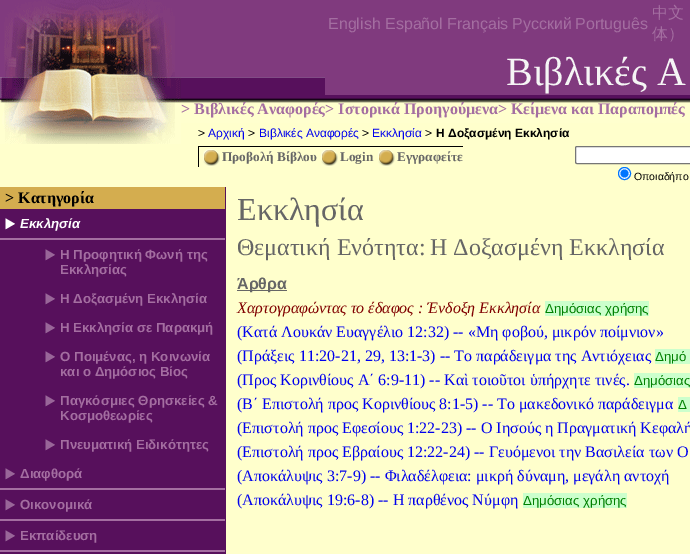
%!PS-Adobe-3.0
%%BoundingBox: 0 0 690 554
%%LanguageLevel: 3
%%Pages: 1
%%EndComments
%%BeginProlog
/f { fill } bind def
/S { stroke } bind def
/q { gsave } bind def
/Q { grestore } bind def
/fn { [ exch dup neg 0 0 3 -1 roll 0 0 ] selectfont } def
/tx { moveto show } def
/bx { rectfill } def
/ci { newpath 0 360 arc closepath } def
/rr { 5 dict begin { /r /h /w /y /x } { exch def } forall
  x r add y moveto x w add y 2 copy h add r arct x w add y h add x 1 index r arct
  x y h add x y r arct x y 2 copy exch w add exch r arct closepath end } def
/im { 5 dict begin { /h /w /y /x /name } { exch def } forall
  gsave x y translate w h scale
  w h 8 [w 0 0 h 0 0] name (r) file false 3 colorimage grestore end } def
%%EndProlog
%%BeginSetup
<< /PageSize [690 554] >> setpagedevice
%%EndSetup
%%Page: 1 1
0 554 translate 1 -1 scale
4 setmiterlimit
1 1 0.8 setrgbcolor
0 0 690 554 bx
(image0.raw) 181 0 509 123 im
(image1.raw) 0 0 181 144 im
/LiberationSans-Regular 16 fn
0.643 0.431 0.631 setrgbcolor
(English) 328 29 tx
(Español) 385 29 tx
(Français) 447 29 tx
(Русский) 512 29 tx
(Português) 575 29 tx
/WenQuanYiZenHei-Medium 16 fn
(中文) 652 18 tx
(体）) 652 39 tx
0.502 0.227 0.494 setrgbcolor
325 77 365 18 bx
/LiberationSerif-Regular 40 fn
0.961 setgray
(Βιβλικές Α) 506 85 tx
/LiberationSerif-Bold 16 fn
0.643 0.431 0.631 setrgbcolor
(> Βιβλικές Αναφορές> Ιστορικά Προηγούμενα> Κείμενα και Παραπομπές) 181 114 tx
/LiberationSans-Regular 12 fn
0 setgray
(>) 198 137 tx
0 0 0.933 setrgbcolor
(Αρχική) 208 137 tx
0 setgray
(>) 248 137 tx
0 0 0.933 setrgbcolor
(Βιβλικές Αναφορές) 259 137 tx
0 setgray
(>) 362 137 tx
0 0 0.933 setrgbcolor
(Εκκλησία) 372 137 tx
0 setgray
(>) 425 137 tx
/LiberationSans-Bold 12 fn
(Η Δοξασμένη Εκκλησία) 436 137 tx
198 146 265 1 bx
198 146 1 21 bx
(image2.raw) 203 149 17 18 im
/LiberationSerif-Bold 13.25 fn
0.4 setgray
(Προβολή Βίβλου) 222 161 tx
(image2.raw) 321 149 17 18 im
(Login) 340 161 tx
(image2.raw) 378 149 17 18 im
(Eγγραφείτε) 397 161 tx
1 setgray
575.5 146.5 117 17 1.5 rr q f Q
0.463 setgray
S
1 setgray
624.5 173.5 6 ci q f Q
0 0.459 1 setrgbcolor
S
624.5 173.5 4 ci f
/LiberationSans-Regular 10.5 fn
0 setgray
(Οποιαδήπο) 634 180 tx
0.341 0.063 0.361 setrgbcolor
0 187 226 367 bx
0.831 0.678 0.31 setrgbcolor
0 187 225 22 bx
/LiberationSerif-Bold 16 fn
0 setgray
(> Κατηγορία) 5 203 tx
0.643 0.431 0.631 setrgbcolor
0 238 225 2 bx
(image3.raw) 5 218 10 12 im
/LiberationSans-BoldItalic 13.25 fn
1 setgray
(Εκκλησία) 20 228 tx
(image4.raw) 45 249 10 12 im
/LiberationSans-Bold 13.25 fn
0.643 0.431 0.631 setrgbcolor
(Η Προφητική Φωνή της) 60 259 tx
(Εκκλησίας) 60 274 tx
(image4.raw) 45 293 10 12 im
(Η Δοξασμένη Εκκλησία) 60 303 tx
(image4.raw) 45 322 10 12 im
(Η Εκκλησία σε Παρακμή) 60 332 tx
(image4.raw) 45 351 10 12 im
(Ο Ποιμένας, η Κοινωνία) 60 361 tx
(και ο Δημόσιος Βίος) 60 376 tx
(image4.raw) 45 395 10 12 im
(Παγκόσμιες Θρησκείες &) 60 405 tx
(Κοσμοθεωρίες) 60 420 tx
(image4.raw) 45 439 10 12 im
(Πνευματική Ειδικότητες) 60 449 tx
0 488 225 2 bx
(image4.raw) 5 468 10 12 im
(Διαφθορά) 20 478 tx
0 519 225 2 bx
(image4.raw) 5 499 10 12 im
(Οικονομικά) 20 509 tx
0 550 225 2 bx
(image4.raw) 5 530 10 12 im
(Εκπαίδευση) 20 540 tx
/LiberationSerif-Regular 32 fn
0.4 setgray
(Εκκλησία) 237 220 tx
/LiberationSerif-Regular 24 fn
(Θεματική Ενότητα:) 237 255 tx
(Η Δοξασμένη Εκκλησία) 430 255 tx
237 290 50 1 bx
/LiberationSans-Bold 16 fn
(Άρθρα) 237 289 tx
/LiberationSerif-Italic 16 fn
0.502 0 0 setrgbcolor
(Χαρτογραφώντας το έδαφος : Ένδοξη Εκκλησία) 237 313 tx
0.8 1 0.8 setrgbcolor
545 301 104 15 bx
/LiberationSans-Regular 13.25 fn
0 0.502 0 setrgbcolor
(Δημόσιας χρήσης) 545 313 tx
/LiberationSerif-Regular 16 fn
0 0 0.933 setrgbcolor
(\(Κατά Λουκάν Ευαγγέλιο 12:32\) -- «Μη φοβού, μικρόν ποίμνιον») 237 337 tx
(\(Πράξεις 11:20-21, 29, 13:1-3\) -- Το παράδειγμα της Αντιόχειας) 237 361 tx
0.8 1 0.8 setrgbcolor
655 349 35 15 bx
/LiberationSans-Regular 13.25 fn
0 0.502 0 setrgbcolor
(Δημό) 655 361 tx
/LiberationSerif-Regular 16 fn
0 0 0.933 setrgbcolor
(\(Προς Κορινθίους Α΄ 6:9-11\) -- Καὶ τοιοῦτοι ὑπήρχητε τινές.) 237 385 tx
0.8 1 0.8 setrgbcolor
634 373 56 15 bx
/LiberationSans-Regular 13.25 fn
0 0.502 0 setrgbcolor
(Δημόσιας) 634 385 tx
/LiberationSerif-Regular 16 fn
0 0 0.933 setrgbcolor
(\(Β΄ Επιστολή προς Κορινθίους 8:1-5\) -- Το μακεδονικό παράδειγμα) 237 409 tx
0.8 1 0.8 setrgbcolor
678 397 12 15 bx
/LiberationSans-Regular 13.25 fn
0 0.502 0 setrgbcolor
(Δ) 678 409 tx
/LiberationSerif-Regular 16 fn
0 0 0.933 setrgbcolor
(\(Επιστολή προς Εφεσίους 1:22-23\) -- Ο Ιησούς η Πραγματική Κεφαλή) 237 433 tx
(\(Επιστολή προς Εβραίους 12:22-24\) -- Γευόμενοι την Βασιλεία των Ο) 237 457 tx
(\(Αποκάλυψις 3:7-9\) -- Φιλαδέλφεια: μικρή δύναμη, μεγάλη αντοχή) 237 481 tx
(\(Αποκάλυψις 19:6-8\) -- Η παρθένος Νύμφη) 237 505 tx
0.8 1 0.8 setrgbcolor
523 493 104 15 bx
/LiberationSans-Regular 13.25 fn
0 0.502 0 setrgbcolor
(Δημόσιας χρήσης) 523 505 tx
showpage
%%EOF
